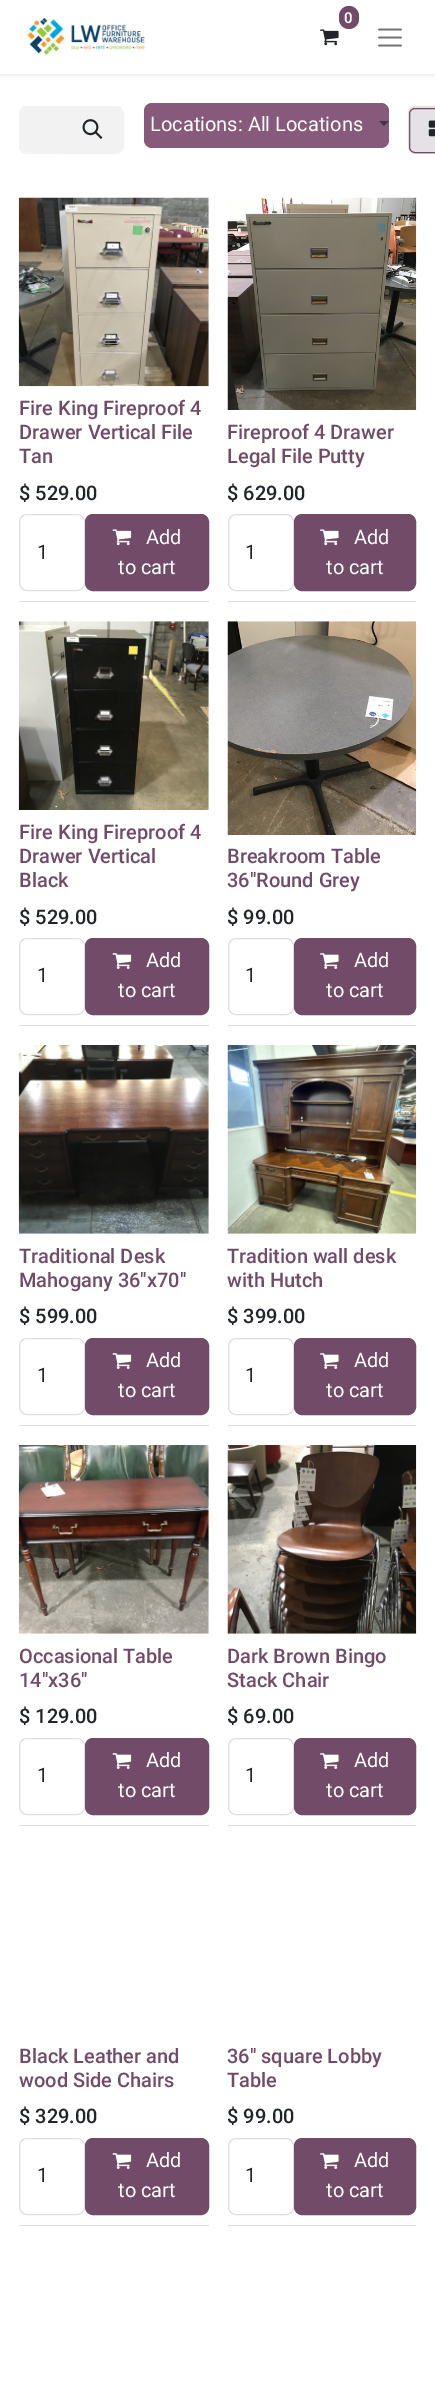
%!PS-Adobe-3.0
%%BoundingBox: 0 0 435 2407
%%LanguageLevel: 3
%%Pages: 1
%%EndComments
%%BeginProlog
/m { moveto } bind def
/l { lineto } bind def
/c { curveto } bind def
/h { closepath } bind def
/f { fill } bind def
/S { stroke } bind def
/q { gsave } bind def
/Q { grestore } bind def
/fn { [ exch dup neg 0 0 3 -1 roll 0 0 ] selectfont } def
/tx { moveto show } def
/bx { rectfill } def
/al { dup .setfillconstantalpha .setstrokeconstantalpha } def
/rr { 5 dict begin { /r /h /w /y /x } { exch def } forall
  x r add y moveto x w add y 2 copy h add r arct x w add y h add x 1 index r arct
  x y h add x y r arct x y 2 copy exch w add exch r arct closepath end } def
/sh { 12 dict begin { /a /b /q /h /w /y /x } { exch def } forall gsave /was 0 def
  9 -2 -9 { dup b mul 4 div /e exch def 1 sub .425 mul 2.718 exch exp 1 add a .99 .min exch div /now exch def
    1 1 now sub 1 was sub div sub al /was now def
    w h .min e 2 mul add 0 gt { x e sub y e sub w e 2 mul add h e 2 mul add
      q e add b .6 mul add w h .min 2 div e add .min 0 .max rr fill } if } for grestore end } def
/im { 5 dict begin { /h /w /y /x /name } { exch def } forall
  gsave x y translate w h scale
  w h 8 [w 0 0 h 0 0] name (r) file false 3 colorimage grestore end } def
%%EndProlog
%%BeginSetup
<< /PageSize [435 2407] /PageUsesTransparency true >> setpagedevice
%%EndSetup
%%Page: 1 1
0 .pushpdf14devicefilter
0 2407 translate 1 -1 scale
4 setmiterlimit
1 setgray
0 0 435 2407 bx
0 setgray
0 1 435 74 0 2 0.1 sh
1 setgray
0 0 435 74 bx
(image0.raw) 25 17 121 38 im
0.443 0.294 0.404 setrgbcolor
339 6 20 23 10 rr f
/Roboto-SemiBold 15 fn
1 setgray
(0) 344 23 tx
(image1.raw) 320 29 19 17 im
(image2.raw) 378 28 24 19 im
0.953 0.949 0.949 setrgbcolor
27 106 m 63 106 l 63 154 l 27 154 l 22.5 154 19 150.5 19 146 c 19 114 l 19 109.5 22.5 106 27 106 c h f
61.5 106.5 m 116 106.5 l 120 106.5 123.5 110 123.5 114 c 123.5 146 l 123.5 150 120 153.5 116 153.5 c 61.5 153.5 l h q f Q
S
(image3.raw) 82 119 21 20 im
0.529 0.353 0.482 setrgbcolor
144 103 245 45 8 rr f
/Roboto-Regular 20 fn
1 setgray
(Locations: All Locations) 150 131 tx
0.251 0.208 0.259 setrgbcolor
379 121 m 389 121 l 384 126 l h f
0.902 0.882 0.894 setrgbcolor
416 106 m 435 106 l 435 154 l 416 154 l 411.5 154 408 150.5 408 146 c 408 114 l 408 109.5 411.5 106 416 106 c h f
0.443 0.294 0.404 setrgbcolor
415 108.5 m 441.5 108.5 l 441.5 152.5 l 415 152.5 l 412 152.5 409.5 150 409.5 147 c 409.5 114 l 409.5 111 412 108.5 415 108.5 c h S
(image4.raw) 428 120 7 17 im
0.871 0.871 0.875 setrgbcolor
19 601 190 1 bx
(image5.raw) 18 197 191 190 im
/Roboto-Medium 20 fn
0.443 0.294 0.404 setrgbcolor
(Fire King Fireproof 4) 19 415 tx
(Drawer Vertical File) 19 439 tx
(Tan) 19 463 tx
0.129 0.145 0.161 setrgbcolor
($ 529.00) 19 500 tx
0.871 0.871 0.875 setrgbcolor
19.5 514.5 65 76 7.5 rr S
/Roboto-Regular 20 fn
0.129 0.145 0.161 setrgbcolor
(1) 37 559 tx
0.443 0.294 0.404 setrgbcolor
85.5 514.5 123 76 7.5 rr q f Q
S
(image6.raw) 112 529 20 17 im
1 setgray
(Add) 146 544 tx
(to cart) 118 574 tx
0.871 0.871 0.875 setrgbcolor
228 601 188 1 bx
(image7.raw) 227 197 190 213 im
/Roboto-Medium 20 fn
0.443 0.294 0.404 setrgbcolor
(Fireproof 4 Drawer) 227 439 tx
(Legal File Putty) 227 463 tx
0.129 0.145 0.161 setrgbcolor
($ 629.00) 227 500 tx
0.871 0.871 0.875 setrgbcolor
228.5 514.5 65 76 7.5 rr S
/Roboto-Regular 20 fn
0.129 0.145 0.161 setrgbcolor
(1) 245 559 tx
0.443 0.294 0.404 setrgbcolor
294.5 514.5 121 76 7.5 rr q f Q
S
(image8.raw) 320 529 19 17 im
1 setgray
(Add) 354 544 tx
(to cart) 326 574 tx
0.871 0.871 0.875 setrgbcolor
19 1025 190 1 bx
(image9.raw) 18 621 191 189 im
/Roboto-Medium 20 fn
0.443 0.294 0.404 setrgbcolor
(Fire King Fireproof 4) 19 839 tx
(Drawer Vertical) 19 863 tx
(Black) 19 887 tx
0.129 0.145 0.161 setrgbcolor
($ 529.00) 19 924 tx
0.871 0.871 0.875 setrgbcolor
19.5 938.5 65 76 7.5 rr S
/Roboto-Regular 20 fn
0.129 0.145 0.161 setrgbcolor
(1) 37 982 tx
0.443 0.294 0.404 setrgbcolor
85.5 938.5 123 76 7.5 rr q f Q
S
(image10.raw) 112 953 20 16 im
1 setgray
(Add) 146 967 tx
(to cart) 118 997 tx
0.871 0.871 0.875 setrgbcolor
228 1025 188 1 bx
(image11.raw) 227 621 190 214 im
/Roboto-Medium 20 fn
0.443 0.294 0.404 setrgbcolor
(Breakroom Table) 227 863 tx
(36"Round Grey) 227 887 tx
0.129 0.145 0.161 setrgbcolor
($ 99.00) 227 924 tx
0.871 0.871 0.875 setrgbcolor
228.5 938.5 65 76 7.5 rr S
/Roboto-Regular 20 fn
0.129 0.145 0.161 setrgbcolor
(1) 245 982 tx
0.443 0.294 0.404 setrgbcolor
294.5 938.5 121 76 7.5 rr q f Q
S
(image12.raw) 320 953 19 16 im
1 setgray
(Add) 354 967 tx
(to cart) 326 997 tx
0.871 0.871 0.875 setrgbcolor
19 1425 190 1 bx
(image13.raw) 18 1045 191 189 im
/Roboto-Medium 20 fn
0.443 0.294 0.404 setrgbcolor
(Traditional Desk) 19 1263 tx
(Mahogany 36"x70") 19 1287 tx
0.129 0.145 0.161 setrgbcolor
($ 599.00) 19 1323 tx
0.871 0.871 0.875 setrgbcolor
19.5 1338.5 65 76 7.5 rr S
/Roboto-Regular 20 fn
0.129 0.145 0.161 setrgbcolor
(1) 37 1382 tx
0.443 0.294 0.404 setrgbcolor
85.5 1338.5 123 76 7.5 rr q f Q
S
(image10.raw) 112 1353 20 16 im
1 setgray
(Add) 146 1367 tx
(to cart) 118 1397 tx
0.871 0.871 0.875 setrgbcolor
228 1425 188 1 bx
(image14.raw) 227 1045 190 189 im
/Roboto-Medium 20 fn
0.443 0.294 0.404 setrgbcolor
(Tradition wall desk) 227 1263 tx
(with Hutch) 227 1287 tx
0.129 0.145 0.161 setrgbcolor
($ 399.00) 227 1323 tx
0.871 0.871 0.875 setrgbcolor
228.5 1338.5 65 76 7.5 rr S
/Roboto-Regular 20 fn
0.129 0.145 0.161 setrgbcolor
(1) 245 1382 tx
0.443 0.294 0.404 setrgbcolor
294.5 1338.5 121 76 7.5 rr q f Q
S
(image12.raw) 320 1353 19 16 im
1 setgray
(Add) 354 1367 tx
(to cart) 326 1397 tx
0.871 0.871 0.875 setrgbcolor
19 1825 190 1 bx
(image15.raw) 18 1445 191 189 im
/Roboto-Medium 20 fn
0.443 0.294 0.404 setrgbcolor
(Occasional Table) 19 1663 tx
(14"x36") 19 1687 tx
0.129 0.145 0.161 setrgbcolor
($ 129.00) 19 1723 tx
0.871 0.871 0.875 setrgbcolor
19.5 1738.5 65 76 7.5 rr S
/Roboto-Regular 20 fn
0.129 0.145 0.161 setrgbcolor
(1) 37 1782 tx
0.443 0.294 0.404 setrgbcolor
85.5 1738.5 123 76 7.5 rr q f Q
S
(image10.raw) 112 1753 20 16 im
1 setgray
(Add) 146 1767 tx
(to cart) 118 1797 tx
0.871 0.871 0.875 setrgbcolor
228 1825 188 1 bx
(image16.raw) 227 1445 190 189 im
/Roboto-Medium 20 fn
0.443 0.294 0.404 setrgbcolor
(Dark Brown Bingo) 227 1663 tx
(Stack Chair) 227 1687 tx
0.129 0.145 0.161 setrgbcolor
($ 69.00) 227 1723 tx
0.871 0.871 0.875 setrgbcolor
228.5 1738.5 65 76 7.5 rr S
/Roboto-Regular 20 fn
0.129 0.145 0.161 setrgbcolor
(1) 245 1782 tx
0.443 0.294 0.404 setrgbcolor
294.5 1738.5 121 76 7.5 rr q f Q
S
(image12.raw) 320 1753 19 16 im
1 setgray
(Add) 354 1767 tx
(to cart) 326 1797 tx
0.871 0.871 0.875 setrgbcolor
19 2225 190 1 bx
/Roboto-Medium 20 fn
0.443 0.294 0.404 setrgbcolor
(Black Leather and) 19 2063 tx
(wood Side Chairs) 19 2087 tx
0.129 0.145 0.161 setrgbcolor
($ 329.00) 19 2123 tx
0.871 0.871 0.875 setrgbcolor
19.5 2138.5 65 76 7.5 rr S
/Roboto-Regular 20 fn
0.129 0.145 0.161 setrgbcolor
(1) 37 2182 tx
0.443 0.294 0.404 setrgbcolor
85.5 2138.5 123 76 7.5 rr q f Q
S
(image10.raw) 112 2153 20 16 im
1 setgray
(Add) 146 2167 tx
(to cart) 118 2197 tx
0.871 0.871 0.875 setrgbcolor
228 2225 188 1 bx
/Roboto-Medium 20 fn
0.443 0.294 0.404 setrgbcolor
(36" square Lobby) 227 2063 tx
(Table) 227 2087 tx
0.129 0.145 0.161 setrgbcolor
($ 99.00) 227 2123 tx
0.871 0.871 0.875 setrgbcolor
228.5 2138.5 65 76 7.5 rr S
/Roboto-Regular 20 fn
0.129 0.145 0.161 setrgbcolor
(1) 245 2182 tx
0.443 0.294 0.404 setrgbcolor
294.5 2138.5 121 76 7.5 rr q f Q
S
(image12.raw) 320 2153 19 16 im
1 setgray
(Add) 354 2167 tx
(to cart) 326 2197 tx
.poppdf14devicefilter showpage
%%EOF
